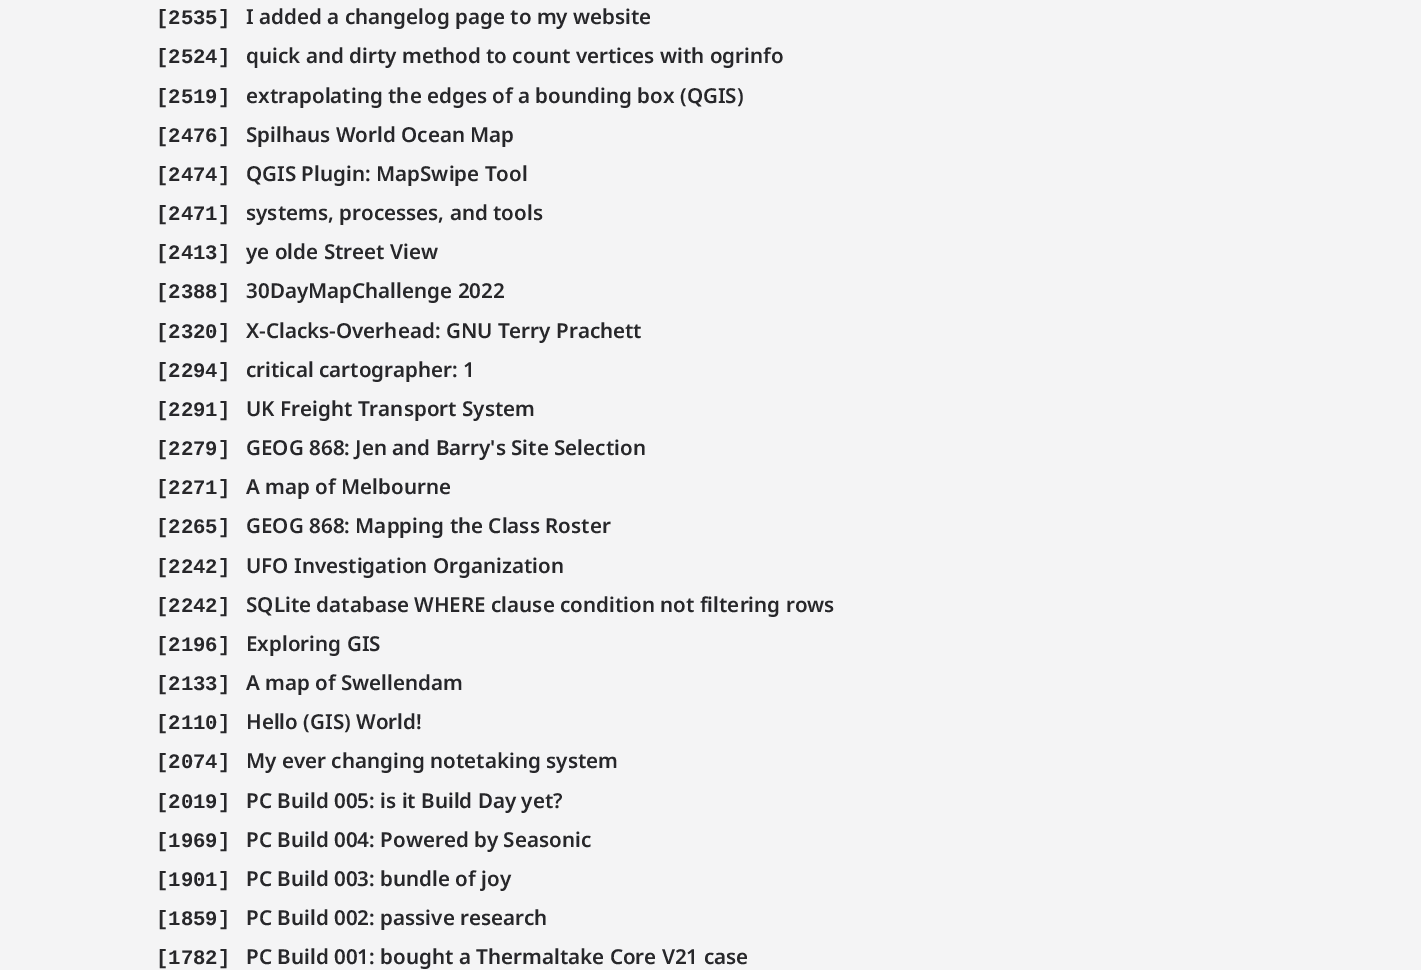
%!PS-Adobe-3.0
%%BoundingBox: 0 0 1421 970
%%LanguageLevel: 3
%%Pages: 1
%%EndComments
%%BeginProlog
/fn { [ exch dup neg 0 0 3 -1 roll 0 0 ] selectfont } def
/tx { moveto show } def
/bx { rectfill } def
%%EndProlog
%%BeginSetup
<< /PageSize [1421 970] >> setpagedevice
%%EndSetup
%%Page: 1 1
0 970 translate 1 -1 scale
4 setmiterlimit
0.957 0.957 0.961 setrgbcolor
0 0 1421 970 bx
/LiberationMono-Bold 20.6 fn
0.153 0.153 0.165 setrgbcolor
([2535]) 156 24 tx
/NotoSans-SemiBold 20.6 fn
(I added a changelog page to my website) 246 24 tx
/LiberationMono-Bold 20.6 fn
([2524]) 156 63 tx
/NotoSans-SemiBold 20.6 fn
(quick and dirty method to count vertices with ogrinfo) 246 63 tx
/LiberationMono-Bold 20.6 fn
([2519]) 156 103 tx
/NotoSans-SemiBold 20.6 fn
(extrapolating the edges of a bounding box \(QGIS\)) 246 103 tx
/LiberationMono-Bold 20.6 fn
([2476]) 156 142 tx
/NotoSans-SemiBold 20.6 fn
(Spilhaus World Ocean Map) 246 142 tx
/LiberationMono-Bold 20.6 fn
([2474]) 156 181 tx
/NotoSans-SemiBold 20.6 fn
(QGIS Plugin: MapSwipe Tool) 246 181 tx
/LiberationMono-Bold 20.6 fn
([2471]) 156 220 tx
/NotoSans-SemiBold 20.6 fn
(systems, processes, and tools) 246 220 tx
/LiberationMono-Bold 20.6 fn
([2413]) 156 259 tx
/NotoSans-SemiBold 20.6 fn
(ye olde Street View) 246 259 tx
/LiberationMono-Bold 20.6 fn
([2388]) 156 298 tx
/NotoSans-SemiBold 20.6 fn
(30DayMapChallenge 2022) 246 298 tx
/LiberationMono-Bold 20.6 fn
([2320]) 156 338 tx
/NotoSans-SemiBold 20.6 fn
(X-Clacks-Overhead: GNU Terry Prachett) 246 338 tx
/LiberationMono-Bold 20.6 fn
([2294]) 156 377 tx
/NotoSans-SemiBold 20.6 fn
(critical cartographer: 1) 246 377 tx
/LiberationMono-Bold 20.6 fn
([2291]) 156 416 tx
/NotoSans-SemiBold 20.6 fn
(UK Freight Transport System) 246 416 tx
/LiberationMono-Bold 20.6 fn
([2279]) 156 455 tx
/NotoSans-SemiBold 20.6 fn
(GEOG 868: Jen and Barry's Site Selection) 246 455 tx
/LiberationMono-Bold 20.6 fn
([2271]) 156 494 tx
/NotoSans-SemiBold 20.6 fn
(A map of Melbourne) 246 494 tx
/LiberationMono-Bold 20.6 fn
([2265]) 156 533 tx
/NotoSans-SemiBold 20.6 fn
(GEOG 868: Mapping the Class Roster) 246 533 tx
/LiberationMono-Bold 20.6 fn
([2242]) 156 573 tx
/NotoSans-SemiBold 20.6 fn
(UFO Investigation Organization) 246 573 tx
/LiberationMono-Bold 20.6 fn
([2242]) 156 612 tx
/NotoSans-SemiBold 20.6 fn
(SQLite database WHERE clause condition not filtering rows) 246 612 tx
/LiberationMono-Bold 20.6 fn
([2196]) 156 651 tx
/NotoSans-SemiBold 20.6 fn
(Exploring GIS) 246 651 tx
/LiberationMono-Bold 20.6 fn
([2133]) 156 690 tx
/NotoSans-SemiBold 20.6 fn
(A map of Swellendam) 246 690 tx
/LiberationMono-Bold 20.6 fn
([2110]) 156 729 tx
/NotoSans-SemiBold 20.6 fn
(Hello \(GIS\) World!) 246 729 tx
/LiberationMono-Bold 20.6 fn
([2074]) 156 768 tx
/NotoSans-SemiBold 20.6 fn
(My ever changing notetaking system) 246 768 tx
/LiberationMono-Bold 20.6 fn
([2019]) 156 808 tx
/NotoSans-SemiBold 20.6 fn
(PC Build 005: is it Build Day yet?) 246 808 tx
/LiberationMono-Bold 20.6 fn
([1969]) 156 847 tx
/NotoSans-SemiBold 20.6 fn
(PC Build 004: Powered by Seasonic) 246 847 tx
/LiberationMono-Bold 20.6 fn
([1901]) 156 886 tx
/NotoSans-SemiBold 20.6 fn
(PC Build 003: bundle of joy) 246 886 tx
/LiberationMono-Bold 20.6 fn
([1859]) 156 925 tx
/NotoSans-SemiBold 20.6 fn
(PC Build 002: passive research) 246 925 tx
/LiberationMono-Bold 20.6 fn
([1782]) 156 964 tx
/NotoSans-SemiBold 20.6 fn
(PC Build 001: bought a Thermaltake Core V21 case) 246 964 tx
showpage
%%EOF
